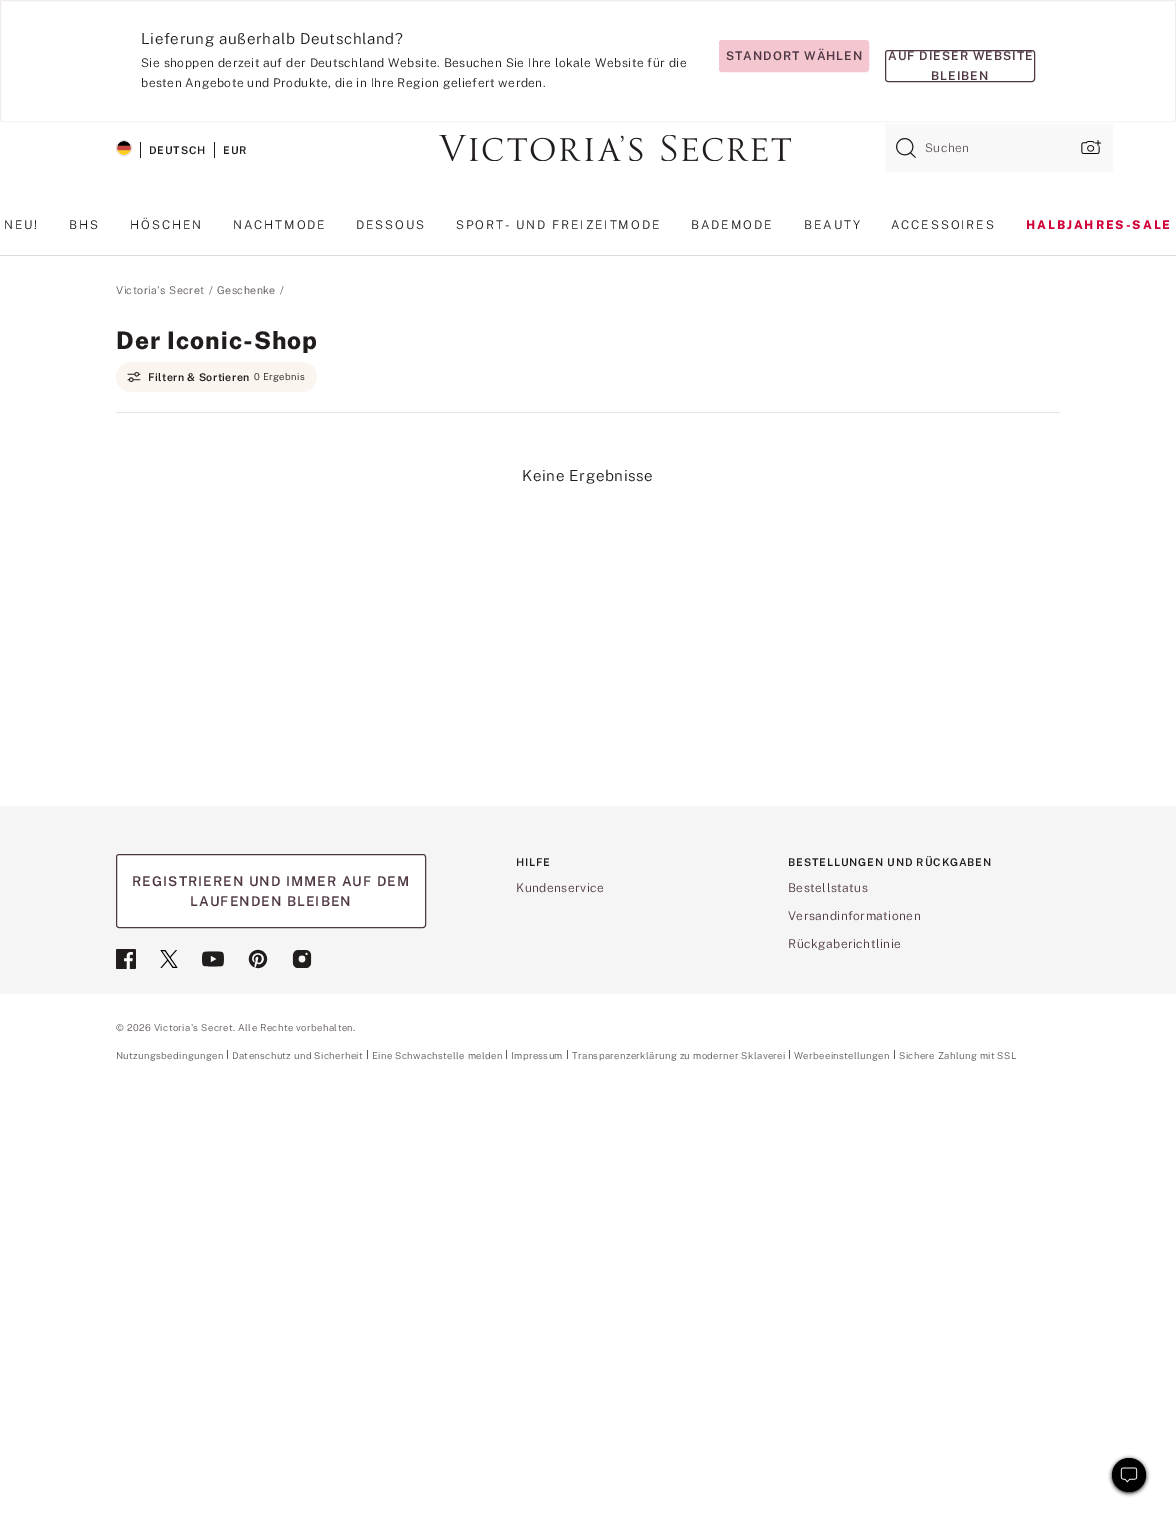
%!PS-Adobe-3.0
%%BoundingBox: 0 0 1176 1522
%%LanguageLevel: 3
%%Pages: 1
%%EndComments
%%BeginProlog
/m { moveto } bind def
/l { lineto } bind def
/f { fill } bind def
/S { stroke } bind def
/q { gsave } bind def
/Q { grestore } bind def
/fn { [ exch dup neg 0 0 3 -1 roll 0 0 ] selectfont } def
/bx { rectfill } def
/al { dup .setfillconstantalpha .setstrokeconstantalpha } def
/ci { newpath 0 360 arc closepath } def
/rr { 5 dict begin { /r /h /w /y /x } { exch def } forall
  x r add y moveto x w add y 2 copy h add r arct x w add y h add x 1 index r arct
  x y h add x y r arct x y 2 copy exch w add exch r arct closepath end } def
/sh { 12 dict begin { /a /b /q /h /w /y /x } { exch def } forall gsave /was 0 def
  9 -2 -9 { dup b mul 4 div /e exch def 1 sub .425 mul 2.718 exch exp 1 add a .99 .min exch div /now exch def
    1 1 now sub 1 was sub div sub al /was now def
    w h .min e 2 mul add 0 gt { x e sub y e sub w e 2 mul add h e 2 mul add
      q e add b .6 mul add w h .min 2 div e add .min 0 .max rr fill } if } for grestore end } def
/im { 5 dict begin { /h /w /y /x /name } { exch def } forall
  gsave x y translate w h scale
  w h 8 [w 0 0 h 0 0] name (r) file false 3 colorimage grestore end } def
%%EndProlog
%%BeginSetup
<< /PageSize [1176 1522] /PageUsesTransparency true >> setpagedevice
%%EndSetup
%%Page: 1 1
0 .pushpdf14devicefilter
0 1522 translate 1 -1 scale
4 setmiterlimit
1 setgray
0 0 1176 1522 bx
0.976 0.886 0.906 setrgbcolor
0 0 1176 2 bx
1 setgray
0 0 1176 122 2 rr f
0.961 0.961 0.965 setrgbcolor
1175 121 m 1174 121.5 l 2 121.5 l 1 121 l S
0.937 0.925 0.918 setrgbcolor
1 121 m 0.5 120 l 0.5 2 l 1 1 l 2 0.5 l 1174 0.5 l 1175 1 l 1175.5 2 l 1175.5 120 l 1175 121 l S
/PublicSans-Light 15.2 fn
0.133 0.114 0.114 setrgbcolor
141 44 m 0.6 0 (Lieferung außerhalb Deutschland?) ashow
/PublicSans-Light 12 fn
141 67 m 0.48 0 (Sie shoppen derzeit auf der Deutschland Website. Besuchen Sie Ihre lokale Website für die) ashow
141 87 m 0.48 0 (besten Angebote und Produkte, die in Ihre Region geliefert werden.) ashow
0.957 0.776 0.812 setrgbcolor
719.5 40.5 149 31 2.5 rr q f Q
S
/PublicSans-SemiBold 12 fn
0.306 0.22 0.267 setrgbcolor
726 60 m 1 0 (STANDORT WÄHLEN) ashow
885.5 50.5 149 31 2.5 rr S
888 60 m 1 0 (AUF DIESER WEBSITE) ashow
931 80 m 1 0 (BLEIBEN) ashow
0.878 0.855 0.835 setrgbcolor
124 148 7.5 ci S
(image0.raw) 117 141 14 14 im
0.133 0.114 0.114 setrgbcolor
140 142 1 16 bx
/PublicSans-SemiBold 10.7 fn
149 154 m 0.85 0 (DEUTSCH) ashow
214 142 1 16 bx
223 154 m 0.85 0 (EUR) ashow
(image1.raw) 439 135 352 26 im
0.976 0.973 0.976 setrgbcolor
885 124 228 48 2 rr f
(image2.raw) 896 138 20 20 im
/PublicSans-Light 12 fn
0.376 0.345 0.345 setrgbcolor
925 152 m 0.48 0 (Suchen) ashow
(image3.raw) 1081 140 21 14 im
0.133 0.114 0.114 setrgbcolor
4 229 m 1.9 0 (NEU!) ashow
69 229 m 1.9 0 (BHS) ashow
130 229 m 1.9 0 (HÖSCHEN) ashow
233 229 m 1.9 0 (NACHTMODE) ashow
356 229 m 1.9 0 (DESSOUS) ashow
456 229 m 1.9 0 (SPORT- UND FREIZEITMODE) ashow
691 229 m 1.9 0 (BADEMODE) ashow
804 229 m 1.9 0 (BEAUTY) ashow
891 229 m 1.9 0 (ACCESSOIRES) ashow
/PublicSans-ExtraBold 12 fn
0.816 0 0.224 setrgbcolor
1026 229 m 1.9 0 (HALBJAHRES-SALE) ashow
0.878 0.855 0.835 setrgbcolor
0 255 1176 1 bx
/PublicSans-Light 10.7 fn
0.376 0.345 0.345 setrgbcolor
116 294 m 0.4 0 (Victoria's Secret) ashow
209 294 m 0.4 0 (/) ashow
217 294 m 0.4 0 (Geschenke) ashow
280 294 m 0.4 0 (/) ashow
/PublicSans-ExtraBold 24.25 fn
0.133 0.114 0.114 setrgbcolor
116 349 m 1 0 (Der Iconic-Shop) ashow
0.91 0.89 0.875 setrgbcolor
116 412 944 1 bx
0.98 0.961 0.937 setrgbcolor
116 362 201 30 15 rr f
(image4.raw) 127 372 14 10 im
/PublicSans-SemiBold 10.7 fn
0.133 0.114 0.114 setrgbcolor
148 381 m 0.4 0 (Filtern & Sortieren) ashow
/PublicSans-Light 9.5 fn
254 380 m 0.38 0 (0 Ergebnis) ashow
/PublicSans-Light 15.2 fn
522 481 m 0.6 0 (Keine Ergebnisse) ashow
0 setgray
1112 1459 34 34 17 2 1 sh
1129 1475 17 ci f
(image5.raw) 1120 1467 18 16 im
0.961 0.961 0.965 setrgbcolor
0 806 1176 188 bx
1 setgray
116.5 854.5 309 73 2.5 rr q f Q
0.306 0.22 0.267 setrgbcolor
S
/PublicSans-SemiBold 13.5 fn
132 886 m 1.1 0 (REGISTRIEREN UND IMMER AUF DEM) ashow
190 906 m 1.1 0 (LAUFENDEN BLEIBEN) ashow
(image6.raw) 116 949 20 20 im
(image7.raw) 160 950 18 18 im
(image8.raw) 202 951 22 16 im
(image9.raw) 248 949 20 20 im
(image10.raw) 292 950 20 18 im
/PublicSans-SemiBold 10.7 fn
0.133 0.114 0.114 setrgbcolor
516 866 m 0.85 0 (HILFE) ashow
/PublicSans-Light 12 fn
0.306 0.22 0.267 setrgbcolor
516 892 m 0.48 0 (Kundenservice) ashow
/PublicSans-SemiBold 10.7 fn
0.133 0.114 0.114 setrgbcolor
788 866 m 0.85 0 (BESTELLUNGEN UND RÜCKGABEN) ashow
/PublicSans-Light 12 fn
0.306 0.22 0.267 setrgbcolor
788 892 m 0.48 0 (Bestellstatus) ashow
788 920 m 0.48 0 (Versandinformationen) ashow
788 948 m 0.48 0 (Rückgaberichtlinie) ashow
/PublicSans-Light 9.5 fn
0.376 0.345 0.345 setrgbcolor
116 1031 m 0.38 0 (© 2026 Victoria's Secret. Alle Rechte vorbehalten.) ashow
116 1059 m 0.38 0 (Nutzungsbedingungen) ashow
227 1050 1 9 bx
232 1059 m 0.38 0 (Datenschutz und Sicherheit) ashow
367 1050 1 9 bx
372 1059 m 0.38 0 (Eine Schwachstelle melden) ashow
506 1050 1 9 bx
511 1059 m 0.38 0 (Impressum) ashow
567 1050 1 9 bx
572 1059 m 0.38 0 (Transparenzerklärung zu moderner Sklaverei) ashow
789 1050 1 9 bx
794 1059 m 0.38 0 (Werbeeinstellungen) ashow
894 1050 1 9 bx
899 1059 m 0.38 0 (Sichere Zahlung mit SSL) ashow
.poppdf14devicefilter showpage
%%EOF
